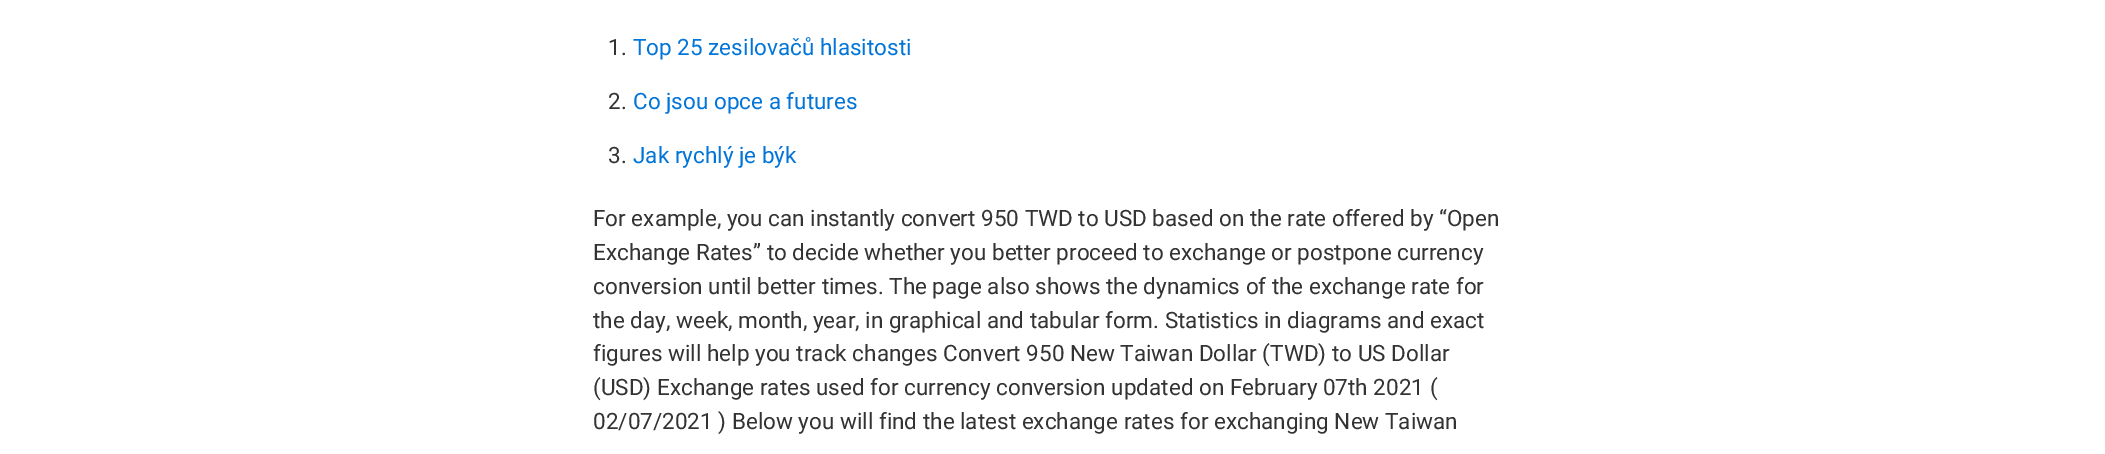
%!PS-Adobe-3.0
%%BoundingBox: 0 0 2105 454
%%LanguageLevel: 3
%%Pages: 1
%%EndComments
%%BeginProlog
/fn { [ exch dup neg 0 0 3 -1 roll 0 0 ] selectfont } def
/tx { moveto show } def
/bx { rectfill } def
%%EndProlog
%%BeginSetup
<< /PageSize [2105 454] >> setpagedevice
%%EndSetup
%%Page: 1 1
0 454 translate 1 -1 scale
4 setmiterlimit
1 setgray
0 0 2105 454 bx
/Roboto-Regular 22.5 fn
0.2 setgray
(1.) 608 55 tx
0.008 0.459 0.847 setrgbcolor
(Top 25 zesilovačů hlasitosti) 633 55 tx
0.2 setgray
(2.) 608 109 tx
0.008 0.459 0.847 setrgbcolor
(Co jsou opce a futures) 633 109 tx
0.2 setgray
(3.) 608 163 tx
0.008 0.459 0.847 setrgbcolor
(Jak rychlý je býk) 633 163 tx
0.2 setgray
(For example, you can instantly convert 950 TWD to USD based on the rate offered by “Open) 593 226 tx
(Exchange Rates” to decide whether you better proceed to exchange or postpone currency) 593 260 tx
(conversion until better times. The page also shows the dynamics of the exchange rate for) 593 294 tx
(the day, week, month, year, in graphical and tabular form. Statistics in diagrams and exact) 593 328 tx
(figures will help you track changes Convert 950 New Taiwan Dollar \(TWD\) to US Dollar) 593 361 tx
(\(USD\) Exchange rates used for currency conversion updated on February 07th 2021 \() 593 395 tx
(02/07/2021 \) Below you will find the latest exchange rates for exchanging New Taiwan) 593 429 tx
showpage
%%EOF
